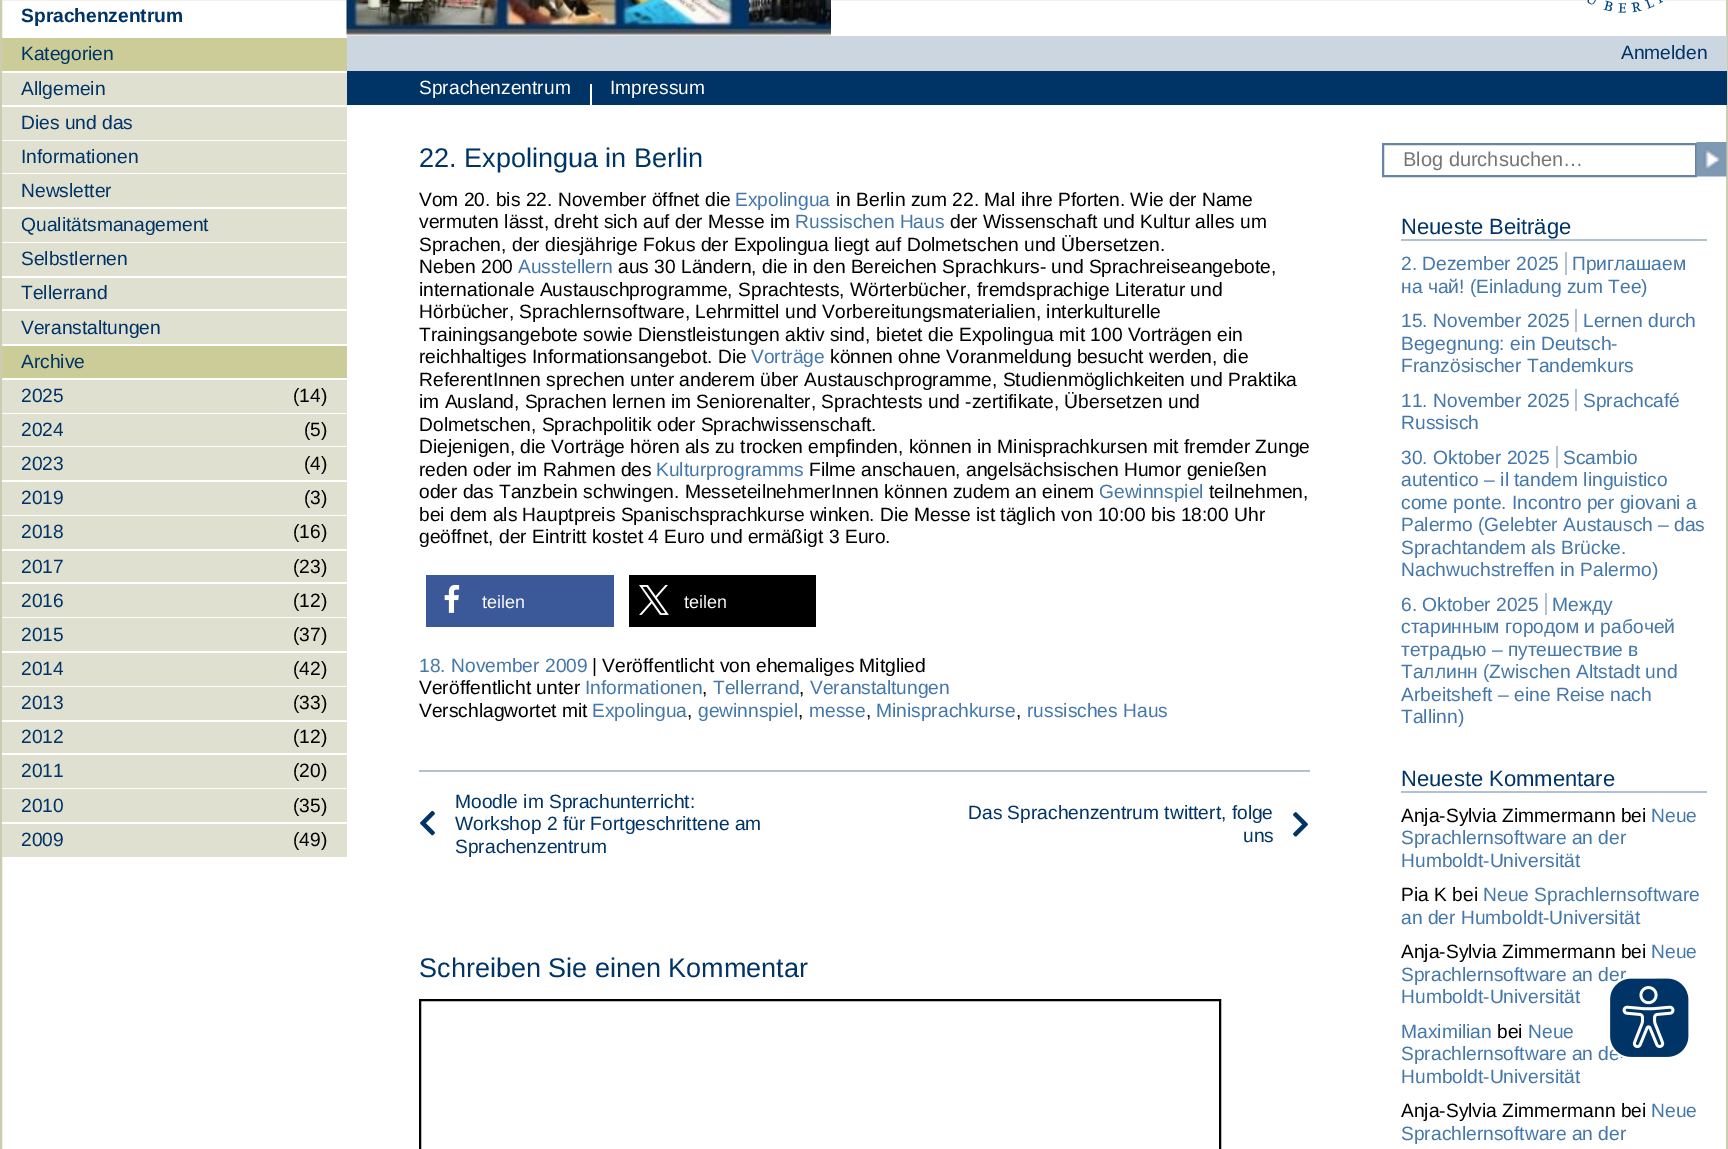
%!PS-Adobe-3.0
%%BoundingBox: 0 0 1728 1149
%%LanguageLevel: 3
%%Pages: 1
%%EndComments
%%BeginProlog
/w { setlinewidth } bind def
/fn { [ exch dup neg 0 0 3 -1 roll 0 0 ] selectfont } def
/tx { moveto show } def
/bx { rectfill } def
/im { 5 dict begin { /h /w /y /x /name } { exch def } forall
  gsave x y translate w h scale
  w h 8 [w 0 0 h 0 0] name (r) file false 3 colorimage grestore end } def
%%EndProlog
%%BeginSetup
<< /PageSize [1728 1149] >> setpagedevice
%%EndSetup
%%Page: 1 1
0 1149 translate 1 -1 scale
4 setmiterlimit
1 setgray
0 0 1728 1149 bx
0.8 0.8 0.698 setrgbcolor
2 w
1 -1 1726 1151 rectstroke
/LiberationSans-Bold 19.2 fn
0 0.2 0.4 setrgbcolor
(Sprachenzentrum) 21 22 tx
(image0.raw) 346 0 485 36 im
(image1.raw) 1587 0 77 13 im
0.8 0.839 0.878 setrgbcolor
347 36 1380 35 bx
/LiberationSans-Regular 19.2 fn
0 0.2 0.4 setrgbcolor
(Anmelden) 1621 59 tx
347 71 1380 34 bx
1 setgray
(Sprachenzentrum) 419 94 tx
590 84 2 23 bx
(Impressum) 610 94 tx
0.878 0.878 0.82 setrgbcolor
2 73 345 271 bx
0.8 0.8 0.6 setrgbcolor
2 38 345 33 bx
0 0.2 0.4 setrgbcolor
(Kategorien) 21 60 tx
1 setgray
2 105 345 2 bx
0 0.2 0.4 setrgbcolor
(Allgemein) 21 95 tx
1 setgray
2 140 345 1 bx
0 0.2 0.4 setrgbcolor
(Dies und das) 21 129 tx
1 setgray
2 173 345 1 bx
0 0.2 0.4 setrgbcolor
(Informationen) 21 163 tx
1 setgray
2 207 345 2 bx
0 0.2 0.4 setrgbcolor
(Newsletter) 21 197 tx
1 setgray
2 242 345 1 bx
0 0.2 0.4 setrgbcolor
(Qualitätsmanagement) 21 231 tx
1 setgray
2 276 345 2 bx
0 0.2 0.4 setrgbcolor
(Selbstlernen) 21 265 tx
1 setgray
2 309 345 2 bx
0 0.2 0.4 setrgbcolor
(Tellerrand) 21 299 tx
(Veranstaltungen) 21 334 tx
0.8 0.8 0.6 setrgbcolor
2 346 345 32 bx
0 0.2 0.4 setrgbcolor
(Archive) 21 368 tx
0.878 0.878 0.82 setrgbcolor
2 380 345 477 bx
1 setgray
2 413 345 1 bx
0 0.2 0.4 setrgbcolor
(2025) 21 402 tx
0 setgray
(\(14\)) 293 402 tx
1 setgray
2 446 345 1 bx
0 0.2 0.4 setrgbcolor
(2024) 21 436 tx
0 setgray
(\(5\)) 304 436 tx
1 setgray
2 480 345 2 bx
0 0.2 0.4 setrgbcolor
(2023) 21 470 tx
0 setgray
(\(4\)) 304 470 tx
1 setgray
2 515 345 1 bx
0 0.2 0.4 setrgbcolor
(2019) 21 504 tx
0 setgray
(\(3\)) 304 504 tx
1 setgray
2 549 345 2 bx
0 0.2 0.4 setrgbcolor
(2018) 21 538 tx
0 setgray
(\(16\)) 293 538 tx
1 setgray
2 582 345 2 bx
0 0.2 0.4 setrgbcolor
(2017) 21 573 tx
0 setgray
(\(23\)) 293 573 tx
1 setgray
2 617 345 1 bx
0 0.2 0.4 setrgbcolor
(2016) 21 607 tx
0 setgray
(\(12\)) 293 607 tx
1 setgray
2 651 345 2 bx
0 0.2 0.4 setrgbcolor
(2015) 21 641 tx
0 setgray
(\(37\)) 293 641 tx
1 setgray
2 686 345 1 bx
0 0.2 0.4 setrgbcolor
(2014) 21 675 tx
0 setgray
(\(42\)) 293 675 tx
1 setgray
2 720 345 2 bx
0 0.2 0.4 setrgbcolor
(2013) 21 709 tx
0 setgray
(\(33\)) 293 709 tx
1 setgray
2 753 345 2 bx
0 0.2 0.4 setrgbcolor
(2012) 21 743 tx
0 setgray
(\(12\)) 293 743 tx
1 setgray
2 788 345 1 bx
0 0.2 0.4 setrgbcolor
(2011) 21 777 tx
0 setgray
(\(20\)) 293 777 tx
1 setgray
2 822 345 2 bx
0 0.2 0.4 setrgbcolor
(2010) 21 812 tx
0 setgray
(\(35\)) 293 812 tx
0 0.2 0.4 setrgbcolor
(2009) 21 846 tx
0 setgray
(\(49\)) 293 846 tx
/LiberationSans-Regular 27 fn
0 0.2 0.4 setrgbcolor
(22. Expolingua in Berlin) 419 167 tx
/LiberationSans-Regular 19.2 fn
0 setgray
(Vom 20. bis 22. November öffnet die) 419 206 tx
0.267 0.467 0.667 setrgbcolor
(Expolingua) 735 206 tx
0 setgray
(in Berlin zum 22. Mal ihre Pforten. Wie der Name) 836 206 tx
(vermuten lässt, dreht sich auf der Messe im) 419 228 tx
0.267 0.467 0.667 setrgbcolor
(Russischen Haus) 795 228 tx
0 setgray
(der Wissenschaft und Kultur alles um) 950 228 tx
(Sprachen, der diesjährige Fokus der Expolingua liegt auf Dolmetschen und Übersetzen.) 419 251 tx
(Neben 200) 419 273 tx
0.267 0.467 0.667 setrgbcolor
(Ausstellern) 518 273 tx
0 setgray
(aus 30 Ländern, die in den Bereichen Sprachkurs- und Sprachreiseangebote,) 618 273 tx
(internationale Austauschprogramme, Sprachtests, Wörterbücher, fremdsprachige Literatur und) 419 296 tx
(Hörbücher, Sprachlernsoftware, Lehrmittel und Vorbereitungsmaterialien, interkulturelle) 419 318 tx
(Trainingsangebote sowie Dienstleistungen aktiv sind, bietet die Expolingua mit 100 Vorträgen ein) 419 341 tx
(reichhaltiges Informationsangebot. Die) 419 363 tx
0.267 0.467 0.667 setrgbcolor
(Vorträge) 751 363 tx
0 setgray
(können ohne Voranmeldung besucht werden, die) 830 363 tx
(ReferentInnen sprechen unter anderem über Austauschprogramme, Studienmöglichkeiten und Praktika) 419 386 tx
(im Ausland, Sprachen lernen im Seniorenalter, Sprachtests und -zertifikate, Übersetzen und) 419 408 tx
(Dolmetschen, Sprachpolitik oder Sprachwissenschaft.) 419 431 tx
(Diejenigen, die Vorträge hören als zu trocken empfinden, können in Minisprachkursen mit fremder Zunge) 419 453 tx
(reden oder im Rahmen des) 419 476 tx
0.267 0.467 0.667 setrgbcolor
(Kulturprogramms) 656 476 tx
0 setgray
(Filme anschauen, angelsächsischen Humor genießen) 809 476 tx
(oder das Tanzbein schwingen. MesseteilnehmerInnen können zudem an einem) 419 498 tx
0.267 0.467 0.667 setrgbcolor
(Gewinnspiel) 1099 498 tx
0 setgray
(teilnehmen,) 1209 498 tx
(bei dem als Hauptpreis Spanischsprachkurse winken. Die Messe ist täglich von 10:00 bis 18:00 Uhr) 419 521 tx
(geöffnet, der Eintritt kostet 4 Euro und ermäßigt 3 Euro.) 419 543 tx
0.231 0.349 0.596 setrgbcolor
426 575 188 52 bx
(image2.raw) 444 584 16 29 im
/LiberationSans-Regular 18 fn
1 setgray
(teilen) 482 608 tx
0 setgray
629 575 187 52 bx
(image3.raw) 639 585 30 30 im
1 setgray
(teilen) 684 608 tx
/LiberationSans-Regular 19.2 fn
0.267 0.467 0.667 setrgbcolor
(18. November 2009) 419 672 tx
0 setgray
(| Veröffentlicht von ehemaliges Mitglied) 592 672 tx
(Veröffentlicht unter) 419 694 tx
0.267 0.467 0.667 setrgbcolor
(Informationen) 585 694 tx
0 setgray
(,) 702 694 tx
0.267 0.467 0.667 setrgbcolor
(Tellerrand) 713 694 tx
0 setgray
(,) 799 694 tx
0.267 0.467 0.667 setrgbcolor
(Veranstaltungen) 810 694 tx
0 setgray
(Verschlagwortet mit) 419 717 tx
0.267 0.467 0.667 setrgbcolor
(Expolingua) 592 717 tx
0 setgray
(,) 687 717 tx
0.267 0.467 0.667 setrgbcolor
(gewinnspiel) 698 717 tx
0 setgray
(,) 798 717 tx
0.267 0.467 0.667 setrgbcolor
(messe) 809 717 tx
0 setgray
(,) 866 717 tx
0.267 0.467 0.667 setrgbcolor
(Minisprachkurse) 876 717 tx
0 setgray
(,) 1016 717 tx
0.267 0.467 0.667 setrgbcolor
(russisches Haus) 1027 717 tx
0.698 0.757 0.82 setrgbcolor
419 770 891 2 bx
(image4.raw) 420 810 15 26 im
0 0.2 0.4 setrgbcolor
(Moodle im Sprachunterricht:) 455 808 tx
(Workshop 2 für Fortgeschrittene am) 455 830 tx
(Sprachenzentrum) 455 853 tx
(Das Sprachenzentrum twittert, folge) 968 819 tx
(uns) 1243 842 tx
(image5.raw) 1293 812 15 25 im
/LiberationSans-Regular 27 fn
(Schreiben Sie einen Kommentar) 419 977 tx
0 setgray
420 1000 800 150 rectstroke
0.4 0.522 0.639 setrgbcolor
1383 144 313 32 rectstroke
/LiberationSans-Regular 20 fn
0.459 setgray
(Blog durchsuchen…) 1403 166 tx
(image6.raw) 1696 142 31 35 im
0.698 0.757 0.82 setrgbcolor
1401 239 306 2 bx
/LiberationSans-Regular 22 fn
0 0.2 0.4 setrgbcolor
(Neueste Beiträge) 1401 234 tx
/LiberationSans-Regular 19.2 fn
0.267 0.467 0.667 setrgbcolor
(2. Dezember 2025) 1401 270 tx
0.698 0.757 0.82 setrgbcolor
1565 252 2 23 bx
0.267 0.467 0.667 setrgbcolor
(Приглашаем) 1572 270 tx
(на чай! \(Einladung zum Tee\)) 1401 293 tx
(15. November 2025) 1401 327 tx
0.698 0.757 0.82 setrgbcolor
1575 309 2 23 bx
0.267 0.467 0.667 setrgbcolor
(Lernen durch) 1583 327 tx
(Begegnung: ein Deutsch-) 1401 350 tx
(Französischer Tandemkurs) 1401 372 tx
(11. November 2025) 1401 407 tx
0.698 0.757 0.82 setrgbcolor
1575 389 2 22 bx
0.267 0.467 0.667 setrgbcolor
(Sprachcafé) 1583 407 tx
(Russisch) 1401 429 tx
(30. Oktober 2025) 1401 464 tx
0.698 0.757 0.82 setrgbcolor
1556 446 2 22 bx
0.267 0.467 0.667 setrgbcolor
(Scambio) 1563 464 tx
(autentico – il tandem linguistico) 1401 486 tx
(come ponte. Incontro per giovani a) 1401 509 tx
(Palermo \(Gelebter Austausch – das) 1401 531 tx
(Sprachtandem als Brücke.) 1401 554 tx
(Nachwuchstreffen in Palermo\)) 1401 576 tx
(6. Oktober 2025) 1401 611 tx
0.698 0.757 0.82 setrgbcolor
1545 593 2 22 bx
0.267 0.467 0.667 setrgbcolor
(Между) 1552 611 tx
(старинным городом и рабочей) 1401 633 tx
(тетрадью – путешествие в) 1401 656 tx
(Таллинн \(Zwischen Altstadt und) 1401 678 tx
(Arbeitsheft – eine Reise nach) 1401 701 tx
(Tallinn\)) 1401 723 tx
0.698 0.757 0.82 setrgbcolor
1401 791 306 2 bx
/LiberationSans-Regular 22 fn
0 0.2 0.4 setrgbcolor
(Neueste Kommentare) 1401 786 tx
/LiberationSans-Regular 19.2 fn
0 setgray
(Anja-Sylvia Zimmermann bei) 1401 822 tx
0.267 0.467 0.667 setrgbcolor
(Neue) 1651 822 tx
(Sprachlernsoftware an der) 1401 844 tx
(Humboldt-Universität) 1401 867 tx
0 setgray
(Pia K bei) 1401 901 tx
0.267 0.467 0.667 setrgbcolor
(Neue Sprachlernsoftware) 1483 901 tx
(an der Humboldt-Universität) 1401 924 tx
0 setgray
(Anja-Sylvia Zimmermann bei) 1401 958 tx
0.267 0.467 0.667 setrgbcolor
(Neue) 1651 958 tx
(Sprachlernsoftware an der) 1401 981 tx
(Humboldt-Universität) 1401 1003 tx
(Maximilian) 1401 1038 tx
0 setgray
(bei) 1497 1038 tx
0.267 0.467 0.667 setrgbcolor
(Neue) 1528 1038 tx
(Sprachlernsoftware an de) 1401 1060 tx
(Humboldt-Universität) 1401 1083 tx
0 setgray
(Anja-Sylvia Zimmermann bei) 1401 1117 tx
0.267 0.467 0.667 setrgbcolor
(Neue) 1651 1117 tx
(Sprachlernsoftware an der) 1401 1140 tx
(image7.raw) 1610 978 79 80 im
showpage
%%EOF
